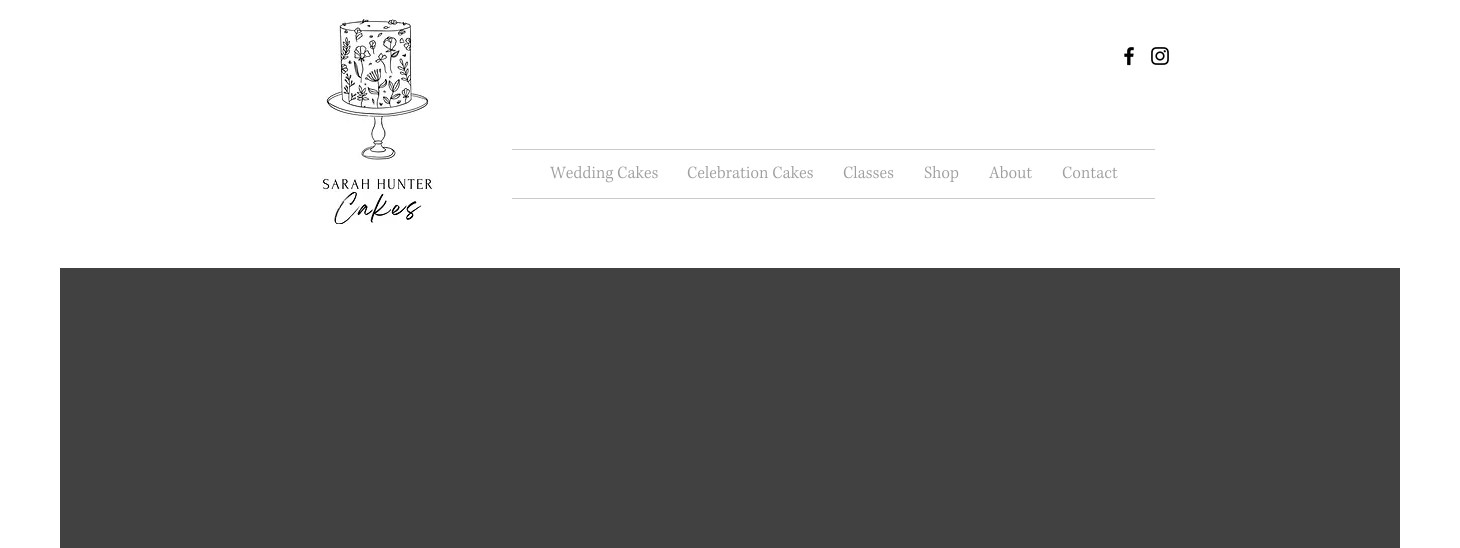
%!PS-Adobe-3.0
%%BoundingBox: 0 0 1460 548
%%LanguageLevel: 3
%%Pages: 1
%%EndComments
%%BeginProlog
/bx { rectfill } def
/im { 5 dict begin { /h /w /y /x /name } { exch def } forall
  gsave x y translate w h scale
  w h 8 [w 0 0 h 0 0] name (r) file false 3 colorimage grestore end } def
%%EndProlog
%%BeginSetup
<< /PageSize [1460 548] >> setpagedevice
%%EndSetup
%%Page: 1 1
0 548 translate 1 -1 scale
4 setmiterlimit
1 setgray
0 0 1460 548 bx
(image0.raw) 322 16 112 208 im
(image1.raw) 1124 46 10 20 im
(image2.raw) 1151 47 18 18 im
0.792 setgray
512 149 643 1 bx
512 198 643 1 bx
(image3.raw) 550 166 108 17 im
(image4.raw) 687 166 126 13 im
(image5.raw) 843 166 51 13 im
(image6.raw) 924 166 35 17 im
(image7.raw) 988 166 44 13 im
(image8.raw) 1062 166 56 13 im
0.255 setgray
60 268 1340 280 bx
showpage
%%EOF
